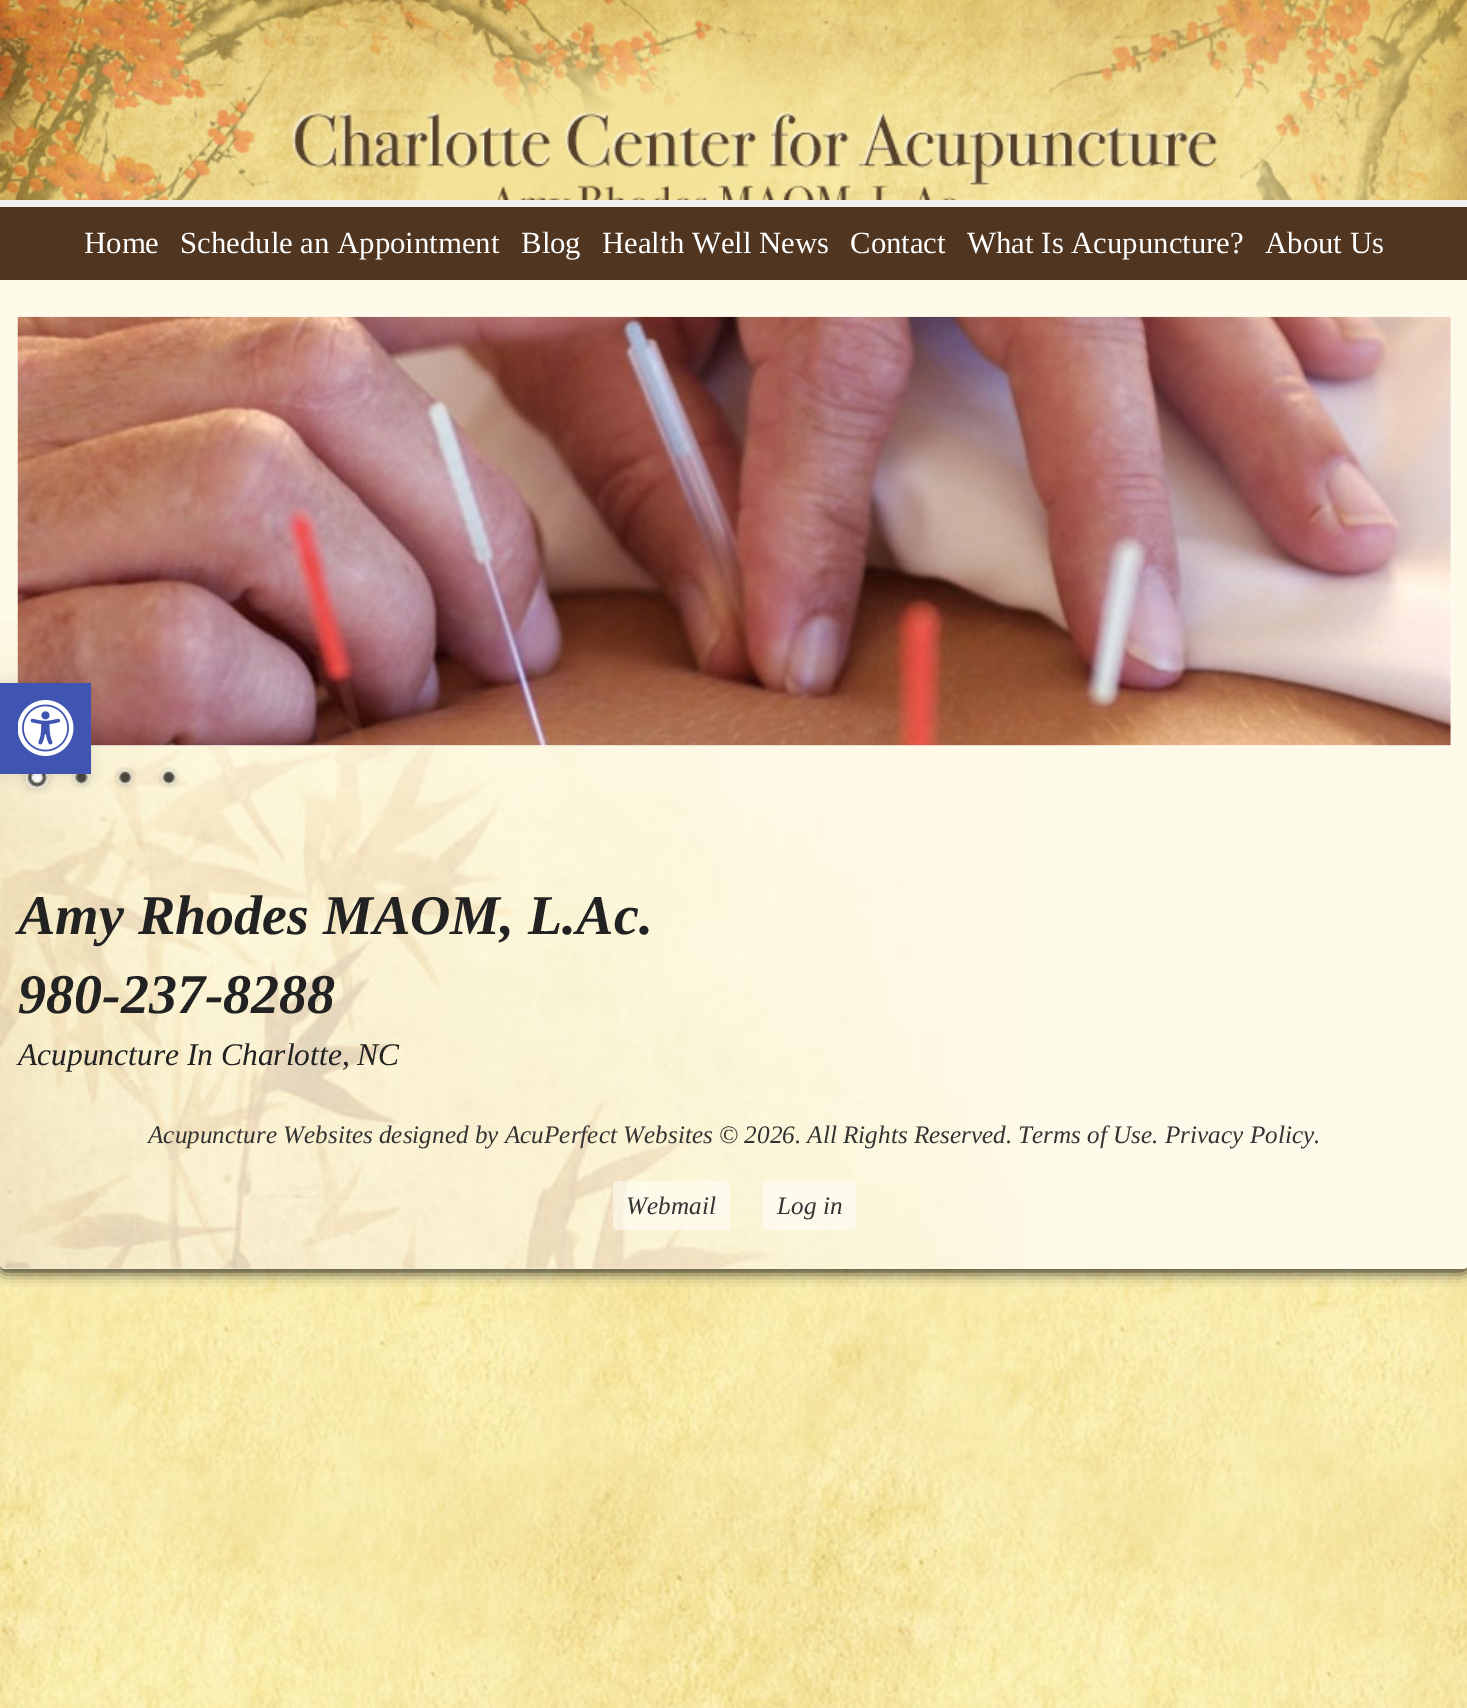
%!PS-Adobe-3.0
%%BoundingBox: 0 0 1467 1708
%%LanguageLevel: 3
%%Pages: 1
%%EndComments
%%BeginProlog
/m { moveto } bind def
/l { lineto } bind def
/c { curveto } bind def
/h { closepath } bind def
/f { fill } bind def
/fn { [ exch dup neg 0 0 3 -1 roll 0 0 ] selectfont } def
/tx { moveto show } def
/bx { rectfill } def
/al { dup .setfillconstantalpha .setstrokeconstantalpha } def
/rr { 5 dict begin { /r /h /w /y /x } { exch def } forall
  x r add y moveto x w add y 2 copy h add r arct x w add y h add x 1 index r arct
  x y h add x y r arct x y 2 copy exch w add exch r arct closepath end } def
/sh { 12 dict begin { /a /b /q /h /w /y /x } { exch def } forall gsave /was 0 def
  9 -2 -9 { dup b mul 4 div /e exch def 1 sub .425 mul 2.718 exch exp 1 add a .99 .min exch div /now exch def
    1 1 now sub 1 was sub div sub al /was now def
    w h .min e 2 mul add 0 gt { x e sub y e sub w e 2 mul add h e 2 mul add
      q e add b .6 mul add w h .min 2 div e add .min 0 .max rr fill } if } for grestore end } def
/im { 5 dict begin { /h /w /y /x /name } { exch def } forall
  gsave x y translate w h scale
  w h 8 [w 0 0 h 0 0] name (r) file false 3 colorimage grestore end } def
%%EndProlog
%%BeginSetup
<< /PageSize [1467 1708] /PageUsesTransparency true >> setpagedevice
%%EndSetup
%%Page: 1 1
0 .pushpdf14devicefilter
0 1708 translate 1 -1 scale
4 setmiterlimit
1 setgray
0 0 1467 1708 bx
(image0.raw) 0 1264 1467 444 im
0 setgray
0 2 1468 1269 5 7 1 sh
0.996 0.98 0.914 setrgbcolor
0 0 m 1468 0 l 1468 1264 l 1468 1267 1466 1269 1463 1269 c 5 1269 l 2 1269 0 1267 0 1264 c h f
(image1.raw) 0 620 1023 649 im
(image2.raw) 0 0 1467 200 im
0.949 0.949 0.941 setrgbcolor
0 200 1467 7 bx
0.314 0.208 0.125 setrgbcolor
0 207 1467 73 bx
/LiberationSerif-Regular 30.75 fn
1 setgray
(Home) 84 253 tx
(Schedule an Appointment) 180 253 tx
(Blog) 521 253 tx
(Health Well News) 602 253 tx
(Contact) 850 253 tx
(What Is Acupuncture?) 967 253 tx
(About Us) 1265 253 tx
91 317 1360 429 bx
(image3.raw) 17 316 1434 430 im
(image4.raw) 21 774 32 19 im
(image5.raw) 71 773 21 15 im
(image6.raw) 114 766 22 22 im
(image7.raw) 158 766 22 22 im
/LiberationSerif-BoldItalic 56 fn
0.133 setgray
(Amy Rhodes MAOM, L.Ac.) 18 934 tx
(980-237-8288) 18 1013 tx
/LiberationSerif-Italic 31.5 fn
(Acupuncture In Charlotte, NC) 18 1065 tx
/LiberationSerif-Italic 25.2 fn
0.2 setgray
(Acupuncture Websites designed by AcuPerfect Websites © 2026. All Rights Reserved.) 148 1143 tx
(Terms of Use. Privacy Policy.) 1018 1143 tx
0.5 al
1 setgray
613 1181 117 49 4 rr f
1 al
0.2 setgray
(Webmail) 626 1214 tx
0.5 al
1 setgray
763 1181 93 49 4 rr f
1 al
0.2 setgray
(Log in) 777 1214 tx
0 setgray
0 683 91 91 0 9 0.1 sh
0.251 0.329 0.698 setrgbcolor
0 683 91 91 bx
(image8.raw) 18 700 56 56 im
.poppdf14devicefilter showpage
%%EOF
